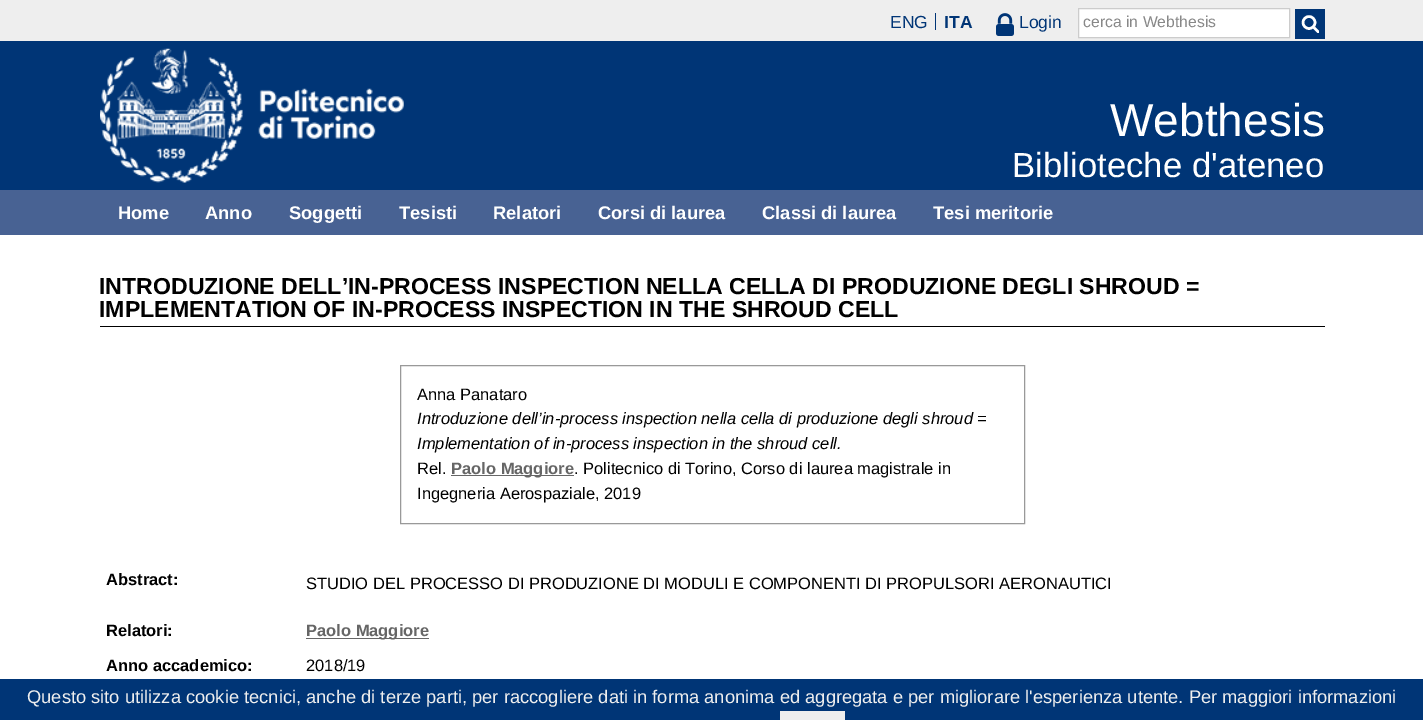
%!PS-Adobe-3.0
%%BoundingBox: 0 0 1423 720
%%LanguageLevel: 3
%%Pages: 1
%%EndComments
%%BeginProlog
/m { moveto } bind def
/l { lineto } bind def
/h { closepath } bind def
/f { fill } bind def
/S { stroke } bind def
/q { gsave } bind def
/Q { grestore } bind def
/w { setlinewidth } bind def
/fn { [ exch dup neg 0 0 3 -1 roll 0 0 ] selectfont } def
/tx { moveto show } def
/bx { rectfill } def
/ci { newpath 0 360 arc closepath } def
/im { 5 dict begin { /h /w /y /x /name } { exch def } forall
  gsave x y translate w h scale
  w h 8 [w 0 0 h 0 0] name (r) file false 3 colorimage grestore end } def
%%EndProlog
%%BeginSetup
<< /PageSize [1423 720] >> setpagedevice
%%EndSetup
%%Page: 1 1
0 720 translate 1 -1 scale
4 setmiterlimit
1 setgray
0 0 1423 720 bx
0.933 setgray
0 0 1423 41 bx
0 0.208 0.463 setrgbcolor
935 13 1 17 bx
/LiberationSans-Regular 17.5 fn
(ENG) 890 28 tx
/LiberationSans-Bold 17.5 fn
(ITA) 944 28 tx
(image0.raw) 996 13 18 23 im
/LiberationSans-Regular 17.5 fn
(Login) 1019 28 tx
1 setgray
1078.5 8.5 m 1289.5 8.5 l 1289.5 37.5 l 1078.5 37.5 l h q f Q
0.8 setgray
S
0 0.208 0.463 setrgbcolor
1295 9 30 30 bx
1 setgray
2.5 w
1309 22.5 6 ci S
q
1301 15 18 18 rectclip
1314 27.5 m 1330 44 l S
Q
/LiberationSans-Regular 15.75 fn
0.533 setgray
(cerca in Webthesis) 1083 27 tx
0 0.208 0.463 setrgbcolor
0 41 1423 149 bx
(image1.raw) 100 48 304 135 im
/LiberationSans-Regular 46 fn
1 setgray
(Webthesis) 1110 136 tx
/LiberationSans-Regular 34.75 fn
(Biblioteche d'ateneo) 1012 177 tx
0.282 0.384 0.576 setrgbcolor
0 190 1423 45 bx
/LiberationSans-Bold 18.33 fn
1 setgray
(Home) 118 219 tx
(Anno) 205 219 tx
(Soggetti) 289 219 tx
(Tesisti) 399 219 tx
(Relatori) 493 219 tx
(Corsi di laurea) 598 219 tx
(Classi di laurea) 762 219 tx
(Tesi meritorie) 933 219 tx
0 setgray
100 326 1225 1 bx
/LiberationSans-Bold 23.1 fn
(INTRODUZIONE DELL’IN-PROCESS INSPECTION NELLA CELLA DI PRODUZIONE DEGLI SHROUD =) 99 294 tx
(IMPLEMENTATION OF IN-PROCESS INSPECTION IN THE SHROUD CELL) 99 317 tx
0.6 setgray
1 w
400.5 365.5 624 158 rectstroke
/LiberationSans-Regular 16.5 fn
0 setgray
(Anna Panataro) 417 400 tx
/LiberationSans-Italic 16.5 fn
(Introduzione dell’in-process inspection nella cella di produzione degli shroud =) 417 424 tx
(Implementation of in-process inspection in the shroud cell.) 417 449 tx
/LiberationSans-Regular 16.5 fn
(Rel.) 417 474 tx
0.4 setgray
451 475 123 1 bx
/LiberationSans-Bold 16.5 fn
(Paolo Maggiore) 451 474 tx
/LiberationSans-Regular 16.5 fn
0 setgray
(. Politecnico di Torino, Corso di laurea magistrale in) 574 474 tx
(Ingegneria Aerospaziale, 2019) 417 499 tx
/LiberationSans-Bold 16.5 fn
(Abstract:) 106 585 tx
/LiberationSans-Regular 16.5 fn
(STUDIO DEL PROCESSO DI PRODUZIONE DI MODULI E COMPONENTI DI PROPULSORI AERONAUTICI) 306 589 tx
/LiberationSans-Bold 16.5 fn
(Relatori:) 106 636 tx
0.4 setgray
306 638 123 1 bx
(Paolo Maggiore) 306 636 tx
0 setgray
(Anno accademico:) 106 671 tx
/LiberationSans-Regular 16.5 fn
(2018/19) 306 671 tx
0 0.208 0.463 setrgbcolor
0 679 1423 41 bx
/LiberationSans-Regular 18.33 fn
0.933 setgray
(Questo sito utilizza cookie tecnici, anche di terze parti, per raccogliere dati in forma anonima ed aggregata e per migliorare l'esperienza utente. Per maggiori informazioni) 27 703 tx
780 711 65 9 bx
showpage
%%EOF
